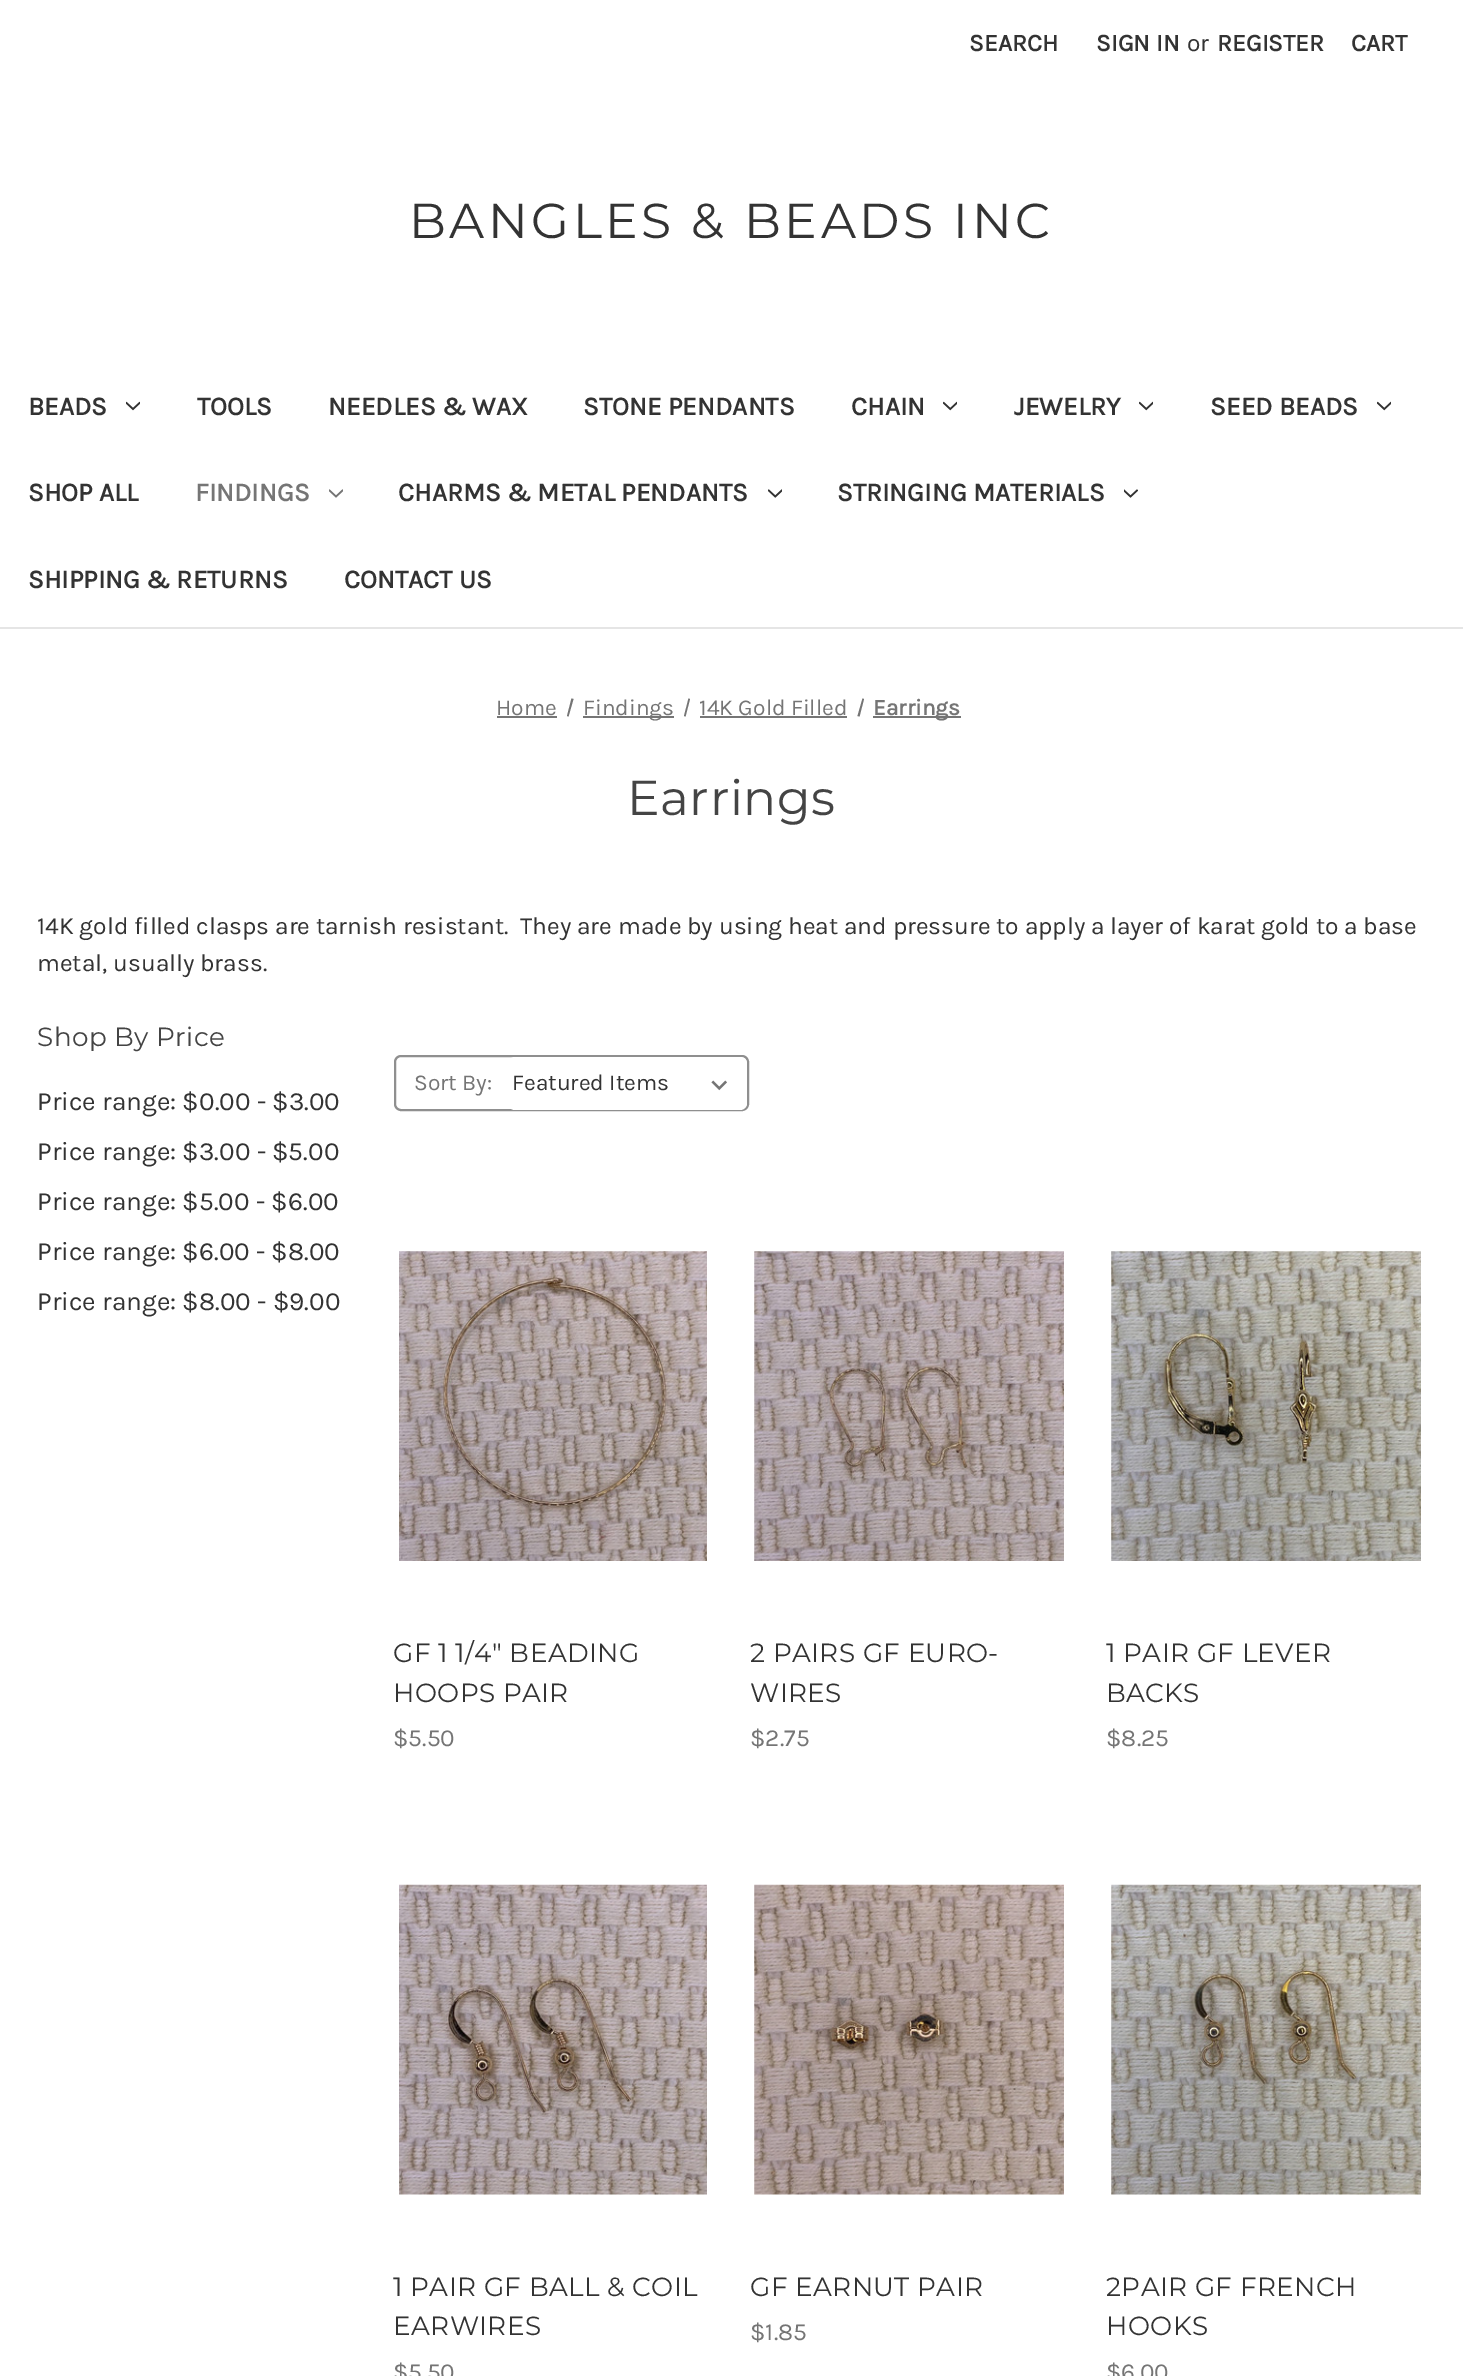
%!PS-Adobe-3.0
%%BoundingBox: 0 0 1463 2376
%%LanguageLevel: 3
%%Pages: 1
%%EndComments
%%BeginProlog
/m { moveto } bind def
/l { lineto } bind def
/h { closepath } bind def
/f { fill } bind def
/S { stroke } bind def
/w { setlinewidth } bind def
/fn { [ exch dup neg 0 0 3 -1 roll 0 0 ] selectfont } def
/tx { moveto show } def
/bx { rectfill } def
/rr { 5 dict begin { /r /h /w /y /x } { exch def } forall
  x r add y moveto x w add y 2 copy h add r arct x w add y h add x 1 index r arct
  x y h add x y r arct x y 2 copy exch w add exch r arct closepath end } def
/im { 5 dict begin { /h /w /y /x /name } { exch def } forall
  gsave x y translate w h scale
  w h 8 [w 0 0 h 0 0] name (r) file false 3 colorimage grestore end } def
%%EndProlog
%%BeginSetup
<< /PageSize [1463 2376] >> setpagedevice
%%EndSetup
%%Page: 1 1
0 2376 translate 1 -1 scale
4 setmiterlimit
1 setgray
0 0 1463 2376 bx
0.898 setgray
0 627 1463 2 bx
/Karla-Bold 24.5 fn
0.2 setgray
(SEARCH) 969 51 tx
(SIGN IN) 1096 51 tx
/Karla-Regular 24.5 fn
(or) 1187 51 tx
/Karla-Bold 24.5 fn
(REGISTER) 1217 51 tx
(CART) 1351 51 tx
/Montserrat-Regular 49 fn
409 238 m 3.5 0 (BANGLES & BEADS INC) ashow
/Karla-Bold 26.25 fn
(BEADS) 28 415 tx
(image0.raw) 126 401 14 10 im
(TOOLS) 197 415 tx
(NEEDLES & WAX) 328 415 tx
(STONE PENDANTS) 583 415 tx
(CHAIN) 851 415 tx
(image1.raw) 943 401 14 10 im
(JEWELRY) 1014 415 tx
(image1.raw) 1139 401 14 10 im
(SEED BEADS) 1210 415 tx
(image1.raw) 1377 401 14 10 im
(SHOP ALL) 28 501 tx
0.459 setgray
(FINDINGS) 195 501 tx
(image2.raw) 329 489 14 9 im
0.2 setgray
(CHARMS & METAL PENDANTS) 398 501 tx
(image3.raw) 768 489 14 9 im
(STRINGING MATERIALS) 837 501 tx
(image4.raw) 1124 489 14 9 im
(SHIPPING & RETURNS) 28 588 tx
(CONTACT US) 344 588 tx
/Karla-Regular 22.75 fn
0.459 setgray
(Home) 496 715 tx
497 716 60 2 bx
571.5 698.5 m 573.5 699 l 568.5 716.5 l 567 716 l h f
583 716 91 2 bx
(Findings) 583 715 tx
688.5 698.5 m 690 699 l 685.5 716.5 l 684 716 l h f
(14K Gold Filled) 699 715 tx
700 716 147 2 bx
862.5 698.5 m 864 699 l 859.5 716.5 l 857.5 716 l h f
873 716 88 2 bx
/Karla-Bold 22.75 fn
(Earrings) 873 715 tx
/Montserrat-Regular 49 fn
0.267 setgray
627 815 m 0.4 0 (Earrings) ashow
/Karla-Regular 24.5 fn
0.2 setgray
(14K gold filled clasps are tarnish resistant.  They are made by using heat and pressure to apply a layer of karat gold to a base) 37 934 tx
(metal, usually brass.) 37 971 tx
/Montserrat-Regular 26.25 fn
0.267 setgray
37 1046 m 0.4 0 (Shop By Price) ashow
/Karla-Regular 26.25 fn
0.2 setgray
(Price range: $0.00 - $3.00) 37 1110 tx
(Price range: $3.00 - $5.00) 37 1160 tx
(Price range: $5.00 - $6.00) 37 1210 tx
(Price range: $6.00 - $8.00) 37 1260 tx
(Price range: $8.00 - $9.00) 37 1310 tx
0.561 setgray
2 w
395 1056 353 54 6 rr S
/Karla-Regular 22.75 fn
0.459 setgray
(Sort By:) 414 1090 tx
1 setgray
508 1057 239 53 7 rr f
(image5.raw) 711 1080 16 11 im
0.2 setgray
(Featured Items) 512 1090 tx
(image6.raw) 399 1251 308 310 im
/Montserrat-Regular 26.25 fn
393 1662 m 0.4 0 (GF 1 1/4" BEADING) ashow
393 1702 m 0.4 0 (HOOPS PAIR) ashow
/Karla-Regular 24.5 fn
0.459 setgray
($5.50) 393 1746 tx
(image7.raw) 754 1251 310 310 im
/Montserrat-Regular 26.25 fn
0.2 setgray
750 1662 m 0.4 0 (2 PAIRS GF EURO-) ashow
750 1702 m 0.4 0 (WIRES) ashow
/Karla-Regular 24.5 fn
0.459 setgray
($2.75) 750 1746 tx
(image8.raw) 1111 1251 310 310 im
/Montserrat-Regular 26.25 fn
0.2 setgray
1106 1662 m 0.4 0 (1 PAIR GF LEVER) ashow
1106 1702 m 0.4 0 (BACKS) ashow
/Karla-Regular 24.5 fn
0.459 setgray
($8.25) 1106 1746 tx
(image9.raw) 399 1884 308 311 im
/Montserrat-Regular 26.25 fn
0.2 setgray
393 2296 m 0.4 0 (1 PAIR GF BALL & COIL) ashow
393 2335 m 0.4 0 (EARWIRES) ashow
/Karla-Regular 24.5 fn
0.459 setgray
($5.50) 393 2380 tx
(image10.raw) 754 1884 310 311 im
/Montserrat-Regular 26.25 fn
0.2 setgray
750 2296 m 0.4 0 (GF EARNUT PAIR) ashow
/Karla-Regular 24.5 fn
0.459 setgray
($1.85) 750 2340 tx
(image11.raw) 1111 1884 310 311 im
/Montserrat-Regular 26.25 fn
0.2 setgray
1106 2296 m 0.4 0 (2PAIR GF FRENCH) ashow
1106 2335 m 0.4 0 (HOOKS) ashow
/Karla-Regular 24.5 fn
0.459 setgray
($6.00) 1106 2380 tx
showpage
%%EOF
